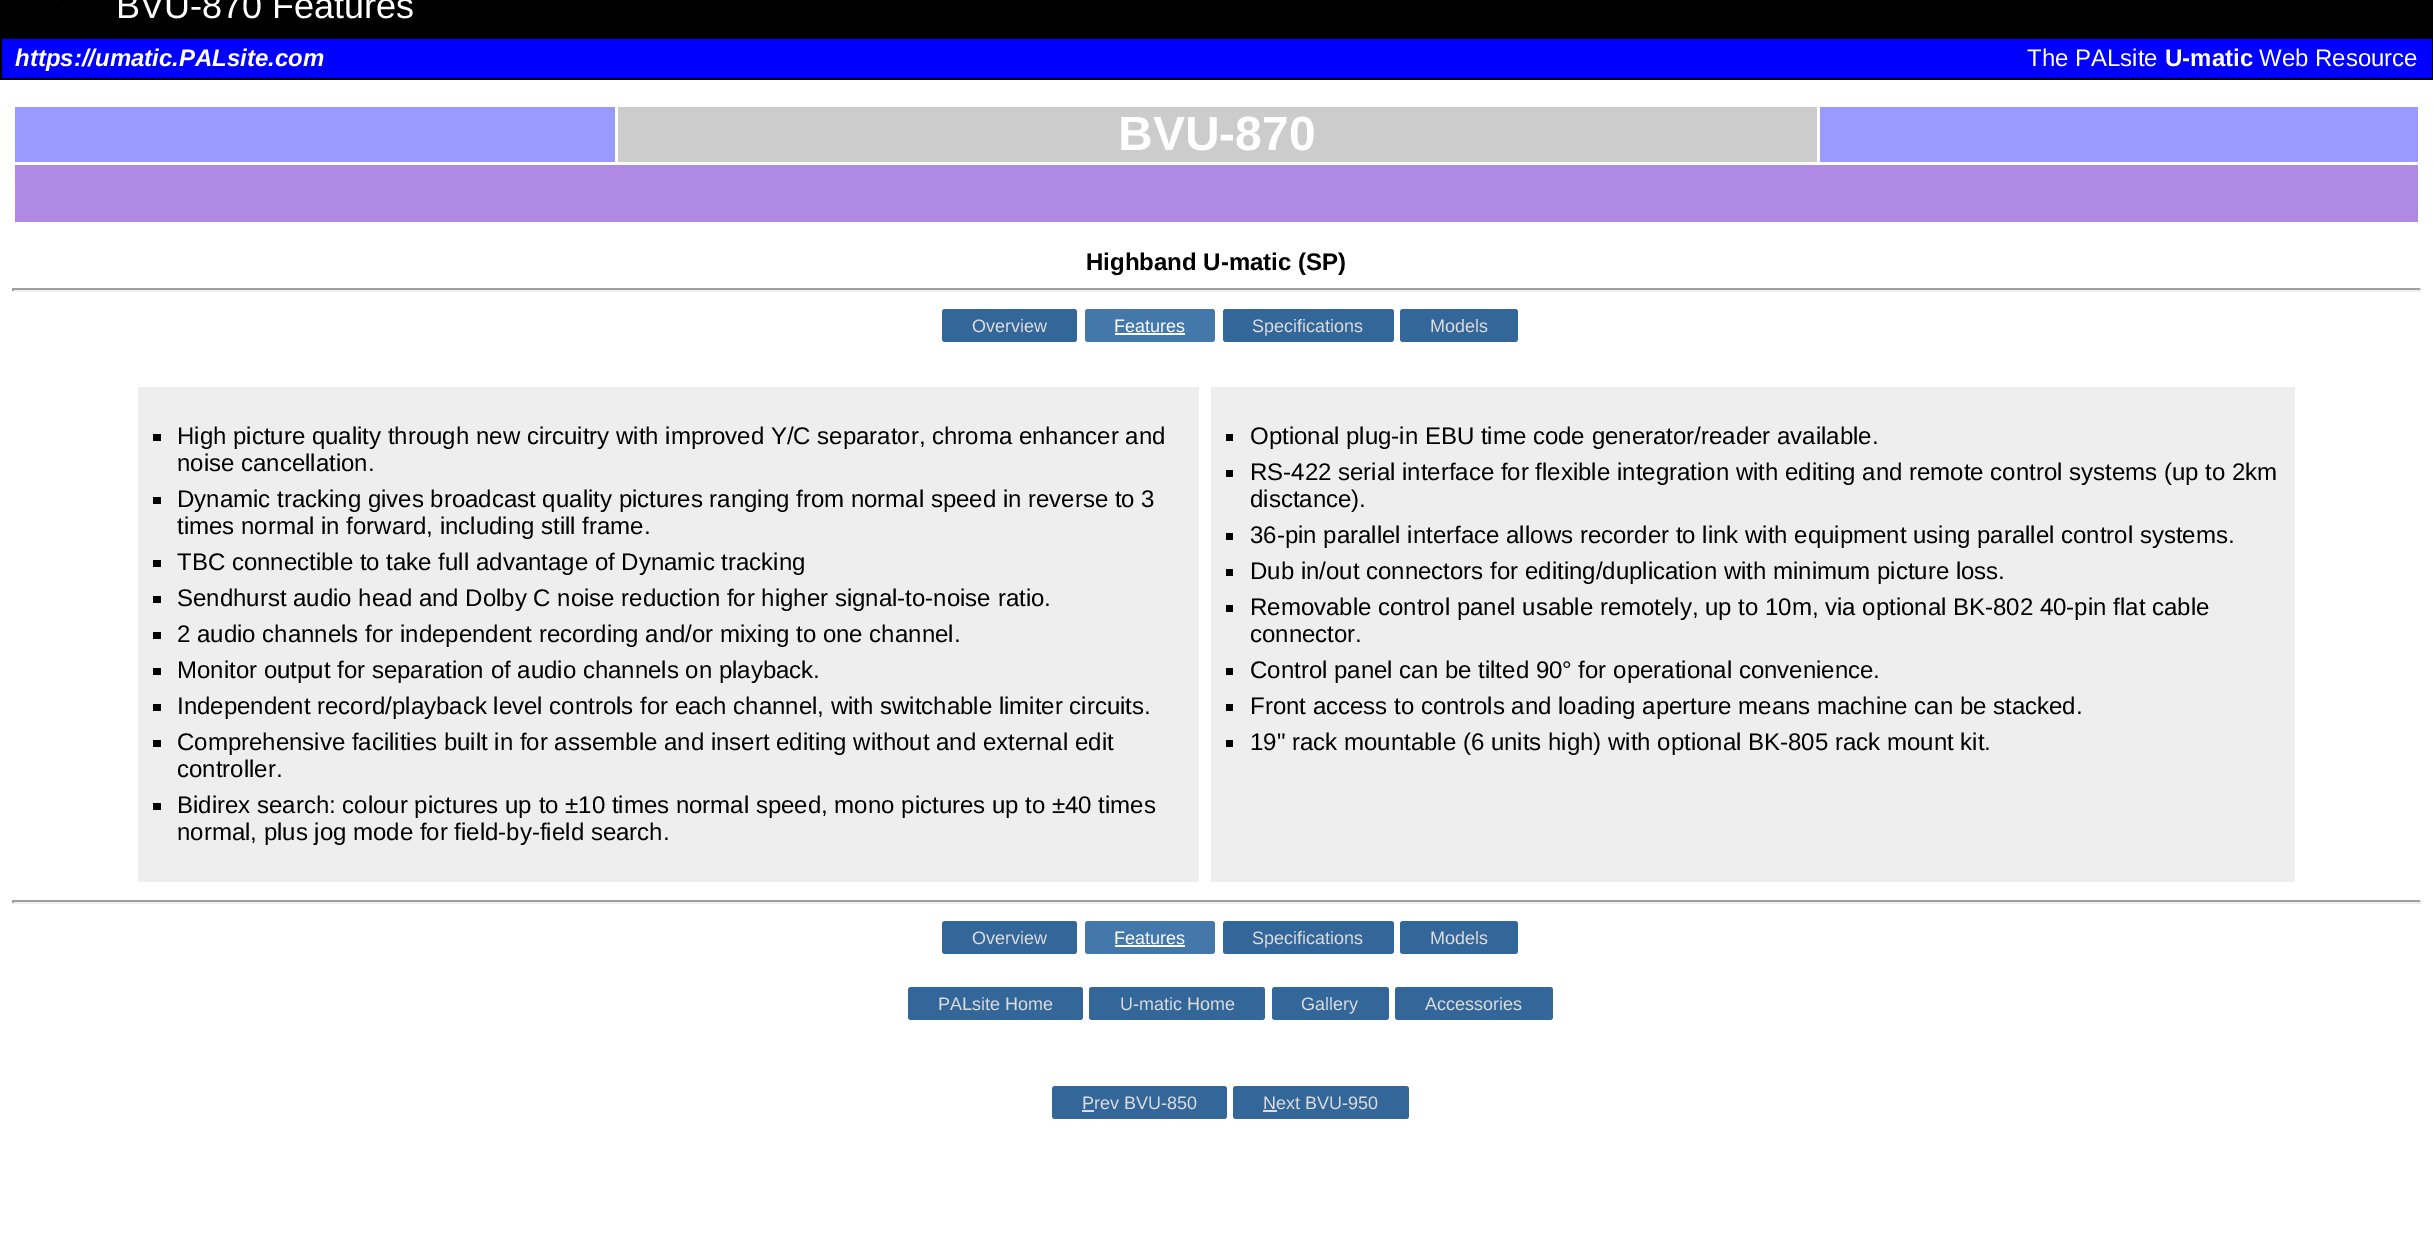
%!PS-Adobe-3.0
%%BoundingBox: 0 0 2433 1238
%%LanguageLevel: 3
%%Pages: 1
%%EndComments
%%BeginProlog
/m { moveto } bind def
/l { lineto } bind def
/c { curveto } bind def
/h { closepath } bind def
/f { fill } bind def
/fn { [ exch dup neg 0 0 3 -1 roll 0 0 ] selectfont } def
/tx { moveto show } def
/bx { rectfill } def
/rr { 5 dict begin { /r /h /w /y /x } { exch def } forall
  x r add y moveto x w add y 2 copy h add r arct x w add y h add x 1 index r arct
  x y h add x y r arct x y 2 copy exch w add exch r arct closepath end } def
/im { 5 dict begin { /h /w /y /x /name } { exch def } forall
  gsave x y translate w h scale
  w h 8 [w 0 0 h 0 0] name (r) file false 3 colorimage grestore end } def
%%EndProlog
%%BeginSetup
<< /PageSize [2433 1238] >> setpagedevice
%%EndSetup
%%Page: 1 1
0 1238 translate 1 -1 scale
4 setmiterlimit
1 setgray
0 0 2433 1238 bx
0 setgray
0 0 2433 80 bx
(image0.raw) 55 0 3 1 im
/LiberationSans-Regular 36 fn
1 setgray
(BVU-870 Features) 116 18 tx
0 0 1 setrgbcolor
2 39 2430 39 bx
/LiberationSans-BoldItalic 24 fn
1 setgray
(https://umatic.PALsite.com) 15 66 tx
/LiberationSans-Regular 24 fn
(The PALsite) 2027 66 tx
/LiberationSans-Bold 24 fn
(U-matic) 2165 66 tx
/LiberationSans-Regular 24 fn
(Web Resource) 2259 66 tx
0.6 0.6 1 setrgbcolor
15 107 600 55 bx
0.8 setgray
618 107 1199 55 bx
/LiberationSans-Bold 48 fn
1 setgray
(BVU-870) 1118 150 tx
0.6 0.6 1 setrgbcolor
1820 107 598 55 bx
0.69 0.537 0.894 setrgbcolor
15 165 2403 57 bx
/LiberationSans-Bold 24 fn
0 setgray
(Highband U-matic \(SP\)) 1086 270 tx
0.624 setgray
12 288 2409 2 bx
0.933 setgray
2420 288 2 3 bx
12 290 2409 2 bx
0.624 setgray
12 288 2 3 bx
0.2 0.4 0.6 setrgbcolor
942 309 135 33 3 rr f
/LiberationSans-Regular 18 fn
0.867 setgray
(Overview) 972 332 tx
0.267 0.467 0.667 setrgbcolor
1085 309 130 33 3 rr f
1 setgray
(Features) 1114 332 tx
1115 333 70 2 bx
0.2 0.4 0.6 setrgbcolor
1223 309 171 33 3 rr f
0.867 setgray
(Specifications) 1252 332 tx
0.2 0.4 0.6 setrgbcolor
1400 309 118 33 3 rr f
0.867 setgray
(Models) 1430 332 tx
0.933 setgray
138 387 1061 495 bx
0 setgray
153 434 8 7 bx
/LiberationSans-Regular 24 fn
(High picture quality through new circuitry with improved Y/C separator, chroma enhancer and) 177 444 tx
(noise cancellation.) 177 471 tx
153 497 8 7 bx
(Dynamic tracking gives broadcast quality pictures ranging from normal speed in reverse to 3) 177 507 tx
(times normal in forward, including still frame.) 177 534 tx
153 560 8 7 bx
(TBC connectible to take full advantage of Dynamic tracking) 177 570 tx
153 596 8 7 bx
(Sendhurst audio head and Dolby C noise reduction for higher signal-to-noise ratio.) 177 606 tx
153 632 8 7 bx
(2 audio channels for independent recording and/or mixing to one channel.) 177 642 tx
153 668 8 7 bx
(Monitor output for separation of audio channels on playback.) 177 678 tx
153 704 8 7 bx
(Independent record/playback level controls for each channel, with switchable limiter circuits.) 177 714 tx
153 740 8 7 bx
(Comprehensive facilities built in for assemble and insert editing without and external edit) 177 750 tx
(controller.) 177 777 tx
153 803 8 7 bx
(Bidirex search: colour pictures up to ±10 times normal speed, mono pictures up to ±40 times) 177 813 tx
(normal, plus jog mode for field-by-field search.) 177 840 tx
0.933 setgray
1211 387 1084 495 bx
0 setgray
1226 434 7 7 bx
(Optional plug-in EBU time code generator/reader available.) 1250 444 tx
1226 470 7 7 bx
(RS-422 serial interface for flexible integration with editing and remote control systems \(up to 2km) 1250 480 tx
(disctance\).) 1250 507 tx
1226 533 7 7 bx
(36-pin parallel interface allows recorder to link with equipment using parallel control systems.) 1250 543 tx
1226 569 7 7 bx
(Dub in/out connectors for editing/duplication with minimum picture loss.) 1250 579 tx
1226 605 7 7 bx
(Removable control panel usable remotely, up to 10m, via optional BK-802 40-pin flat cable) 1250 615 tx
(connector.) 1250 642 tx
1226 668 7 7 bx
(Control panel can be tilted 90° for operational convenience.) 1250 678 tx
1226 704 7 7 bx
(Front access to controls and loading aperture means machine can be stacked.) 1250 714 tx
1226 740 7 7 bx
(19" rack mountable \(6 units high\) with optional BK-805 rack mount kit.) 1250 750 tx
0.624 setgray
12 900 2409 2 bx
0.933 setgray
2420 900 2 3 bx
12 902 2409 2 bx
0.624 setgray
12 900 2 3 bx
0.2 0.4 0.6 setrgbcolor
942 921 135 33 3 rr f
/LiberationSans-Regular 18 fn
0.867 setgray
(Overview) 972 944 tx
0.267 0.467 0.667 setrgbcolor
1085 921 130 33 3 rr f
1 setgray
(Features) 1114 944 tx
1115 945 70 2 bx
0.2 0.4 0.6 setrgbcolor
1223 921 171 33 3 rr f
0.867 setgray
(Specifications) 1252 944 tx
0.2 0.4 0.6 setrgbcolor
1400 921 118 33 3 rr f
0.867 setgray
(Models) 1430 944 tx
0.2 0.4 0.6 setrgbcolor
908 987 175 33 3 rr f
0.867 setgray
(PALsite Home) 938 1010 tx
0.2 0.4 0.6 setrgbcolor
1089 987 176 33 3 rr f
0.867 setgray
(U-matic Home) 1120 1010 tx
0.2 0.4 0.6 setrgbcolor
1272 987 117 33 3 rr f
0.867 setgray
(Gallery) 1301 1010 tx
0.2 0.4 0.6 setrgbcolor
1395 987 158 33 3 rr f
0.867 setgray
(Accessories) 1425 1010 tx
0.2 0.4 0.6 setrgbcolor
1055 1086 m 1094 1086 l 1094 1119 l 1055 1119 l 1053.5 1119 1052 1117.5 1052 1116 c 1052 1089 l 1052 1087.5 1053.5 1086 1055 1086 c h f
1094 1086 m 1224 1086 l 1225.5 1086 1227 1087.5 1227 1089 c 1227 1116 l 1227 1117.5 1225.5 1119 1224 1119 c 1094 1119 l h f
0.867 setgray
(Prev BVU-850) 1082 1109 tx
1082 1110 12 2 bx
0.2 0.4 0.6 setrgbcolor
1236 1086 m 1277 1086 l 1277 1119 l 1236 1119 l 1234.5 1119 1233 1117.5 1233 1116 c 1233 1089 l 1233 1087.5 1234.5 1086 1236 1086 c h f
1277 1086 m 1406 1086 l 1407.5 1086 1409 1087.5 1409 1089 c 1409 1116 l 1409 1117.5 1407.5 1119 1406 1119 c 1277 1119 l h f
0.867 setgray
(Next BVU-950) 1263 1109 tx
1263 1110 14 2 bx
showpage
%%EOF
